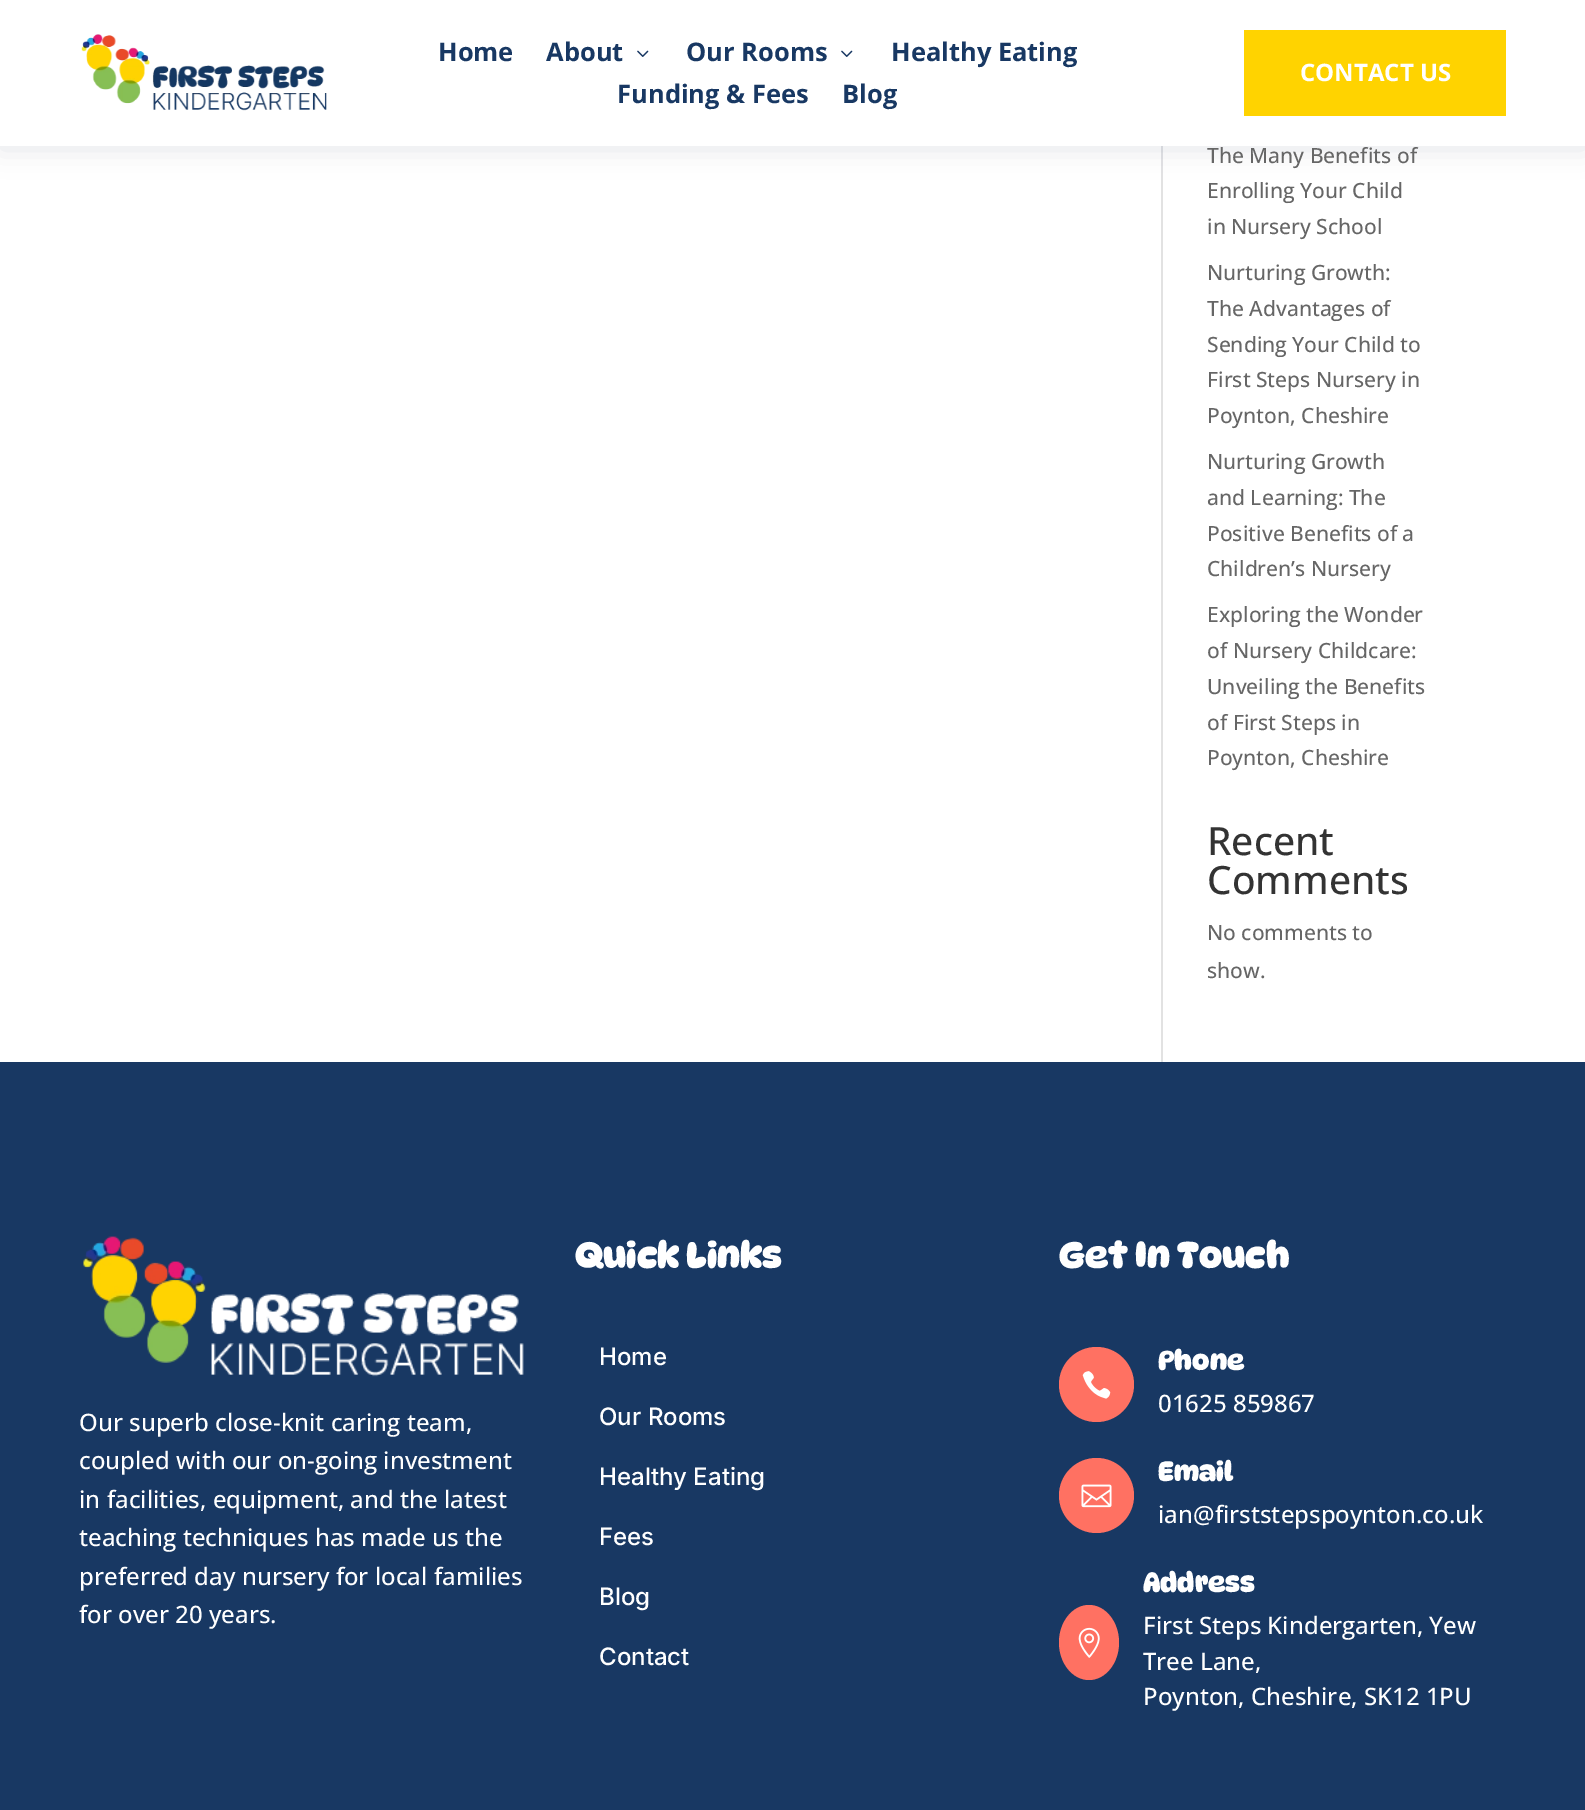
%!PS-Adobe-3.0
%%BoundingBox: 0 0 1585 1810
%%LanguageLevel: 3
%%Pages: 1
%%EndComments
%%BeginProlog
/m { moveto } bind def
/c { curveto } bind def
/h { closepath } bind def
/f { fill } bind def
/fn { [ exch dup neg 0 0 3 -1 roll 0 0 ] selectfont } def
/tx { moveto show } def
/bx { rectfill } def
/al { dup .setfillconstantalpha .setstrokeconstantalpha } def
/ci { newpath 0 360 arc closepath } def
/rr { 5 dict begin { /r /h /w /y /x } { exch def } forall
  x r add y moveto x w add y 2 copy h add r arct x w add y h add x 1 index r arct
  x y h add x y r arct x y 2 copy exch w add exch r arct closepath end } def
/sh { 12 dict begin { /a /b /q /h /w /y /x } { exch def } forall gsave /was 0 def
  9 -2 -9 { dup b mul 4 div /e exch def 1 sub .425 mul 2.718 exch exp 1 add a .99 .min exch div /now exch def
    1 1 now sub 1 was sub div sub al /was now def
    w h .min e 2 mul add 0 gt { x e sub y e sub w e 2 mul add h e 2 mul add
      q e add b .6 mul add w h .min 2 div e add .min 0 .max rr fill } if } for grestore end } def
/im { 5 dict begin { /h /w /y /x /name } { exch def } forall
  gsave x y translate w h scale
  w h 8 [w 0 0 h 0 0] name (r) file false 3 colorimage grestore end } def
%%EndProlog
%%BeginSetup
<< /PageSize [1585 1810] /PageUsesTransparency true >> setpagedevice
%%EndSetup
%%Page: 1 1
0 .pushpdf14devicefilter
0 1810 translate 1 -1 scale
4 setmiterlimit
1 setgray
0 0 1585 1810 bx
0.886 setgray
1161 146 2 916 bx
0.169 0.235 0.42 setrgbcolor
0 3 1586 146 0 13.5 0.14 sh
1 setgray
0 0 1585 146 bx
(image0.raw) 81 34 246 77 im
/OpenSans-Bold 25.5 fn
0.094 0.22 0.388 setrgbcolor
(Home) 438 61 tx
(About) 546 61 tx
(image1.raw) 637 50 12 7 im
(Our Rooms) 686 61 tx
(image1.raw) 841 50 12 7 im
(Healthy Eating) 891 61 tx
(Funding & Fees) 617 103 tx
(Blog) 842 103 tx
1 0.827 0 setrgbcolor
1244 30 262 86 bx
/OpenSans-Bold 24 fn
1 setgray
(CONTACT US) 1300 81 tx
/OpenSans-Medium 21 fn
0.4 setgray
(The Many Benefits of) 1207 163 tx
(Enrolling Your Child) 1207 198 tx
(in Nursery School) 1207 234 tx
(Nurturing Growth:) 1207 280 tx
(The Advantages of) 1207 316 tx
(Sending Your Child to) 1207 352 tx
(First Steps Nursery in) 1207 387 tx
(Poynton, Cheshire) 1207 423 tx
(Nurturing Growth) 1207 469 tx
(and Learning: The) 1207 505 tx
(Positive Benefits of a) 1207 541 tx
(Children’s Nursery) 1207 576 tx
(Exploring the Wonder) 1207 622 tx
(of Nursery Childcare:) 1207 658 tx
(Unveiling the Benefits) 1207 694 tx
(of First Steps in) 1207 730 tx
(Poynton, Cheshire) 1207 765 tx
/OpenSans-Medium 39 fn
0.2 setgray
(Recent) 1207 855 tx
(Comments) 1207 894 tx
/OpenSans-Medium 21 fn
0.4 setgray
(No comments to) 1207 940 tx
(show.) 1207 978 tx
0.094 0.22 0.388 setrgbcolor
0 1062 1585 748 bx
(image2.raw) 83 1236 441 141 im
/OpenSans-Medium 24 fn
1 setgray
(Our superb close-knit caring team,) 79 1431 tx
(coupled with our on-going investment) 79 1469 tx
(in facilities, equipment, and the latest) 79 1508 tx
(teaching techniques has made us the) 79 1546 tx
(preferred day nursery for local families) 79 1585 tx
(for over 20 years.) 79 1623 tx
/DynaPuff-Bold 36 fn
(Quick Links) 575 1268 tx
/Inter-Medium 24 fn
(Home) 599 1365 tx
(Our Rooms) 599 1425 tx
(Healthy Eating) 599 1485 tx
(Fees) 599 1545 tx
(Blog) 599 1605 tx
(Contact) 599 1665 tx
/DynaPuff-Bold 36 fn
(Get In Touch) 1059 1268 tx
1 0.443 0.384 setrgbcolor
1096.5 1384.5 37.5 ci f
(image3.raw) 1082 1371 29 28 im
/DynaPuff-Bold 27 fn
1 setgray
(Phone) 1158 1370 tx
/OpenSans-Medium 24 fn
(01625 859867) 1158 1412 tx
1 0.443 0.384 setrgbcolor
1096.5 1495.5 37.5 ci f
(image4.raw) 1081 1484 31 24 im
/DynaPuff-Bold 27 fn
1 setgray
(Email) 1158 1481 tx
/OpenSans-Medium 24 fn
(ian@firststepspoynton.co.uk) 1158 1523 tx
1 0.443 0.384 setrgbcolor
1089 1605 m 1105.5 1605 1119 1622 1119 1642.5 c 1119 1663 1105.5 1680 1089 1680 c 1072.5 1680 1059 1663 1059 1642.5 c 1059 1622 1072.5 1605 1089 1605 c h f
(image5.raw) 1078 1627 22 31 im
/DynaPuff-Bold 27 fn
1 setgray
(Address) 1143 1592 tx
/OpenSans-Medium 24 fn
(First Steps Kindergarten, Yew) 1143 1634 tx
(Tree Lane,) 1143 1670 tx
(Poynton, Cheshire, SK12 1PU) 1143 1705 tx
.poppdf14devicefilter showpage
%%EOF
